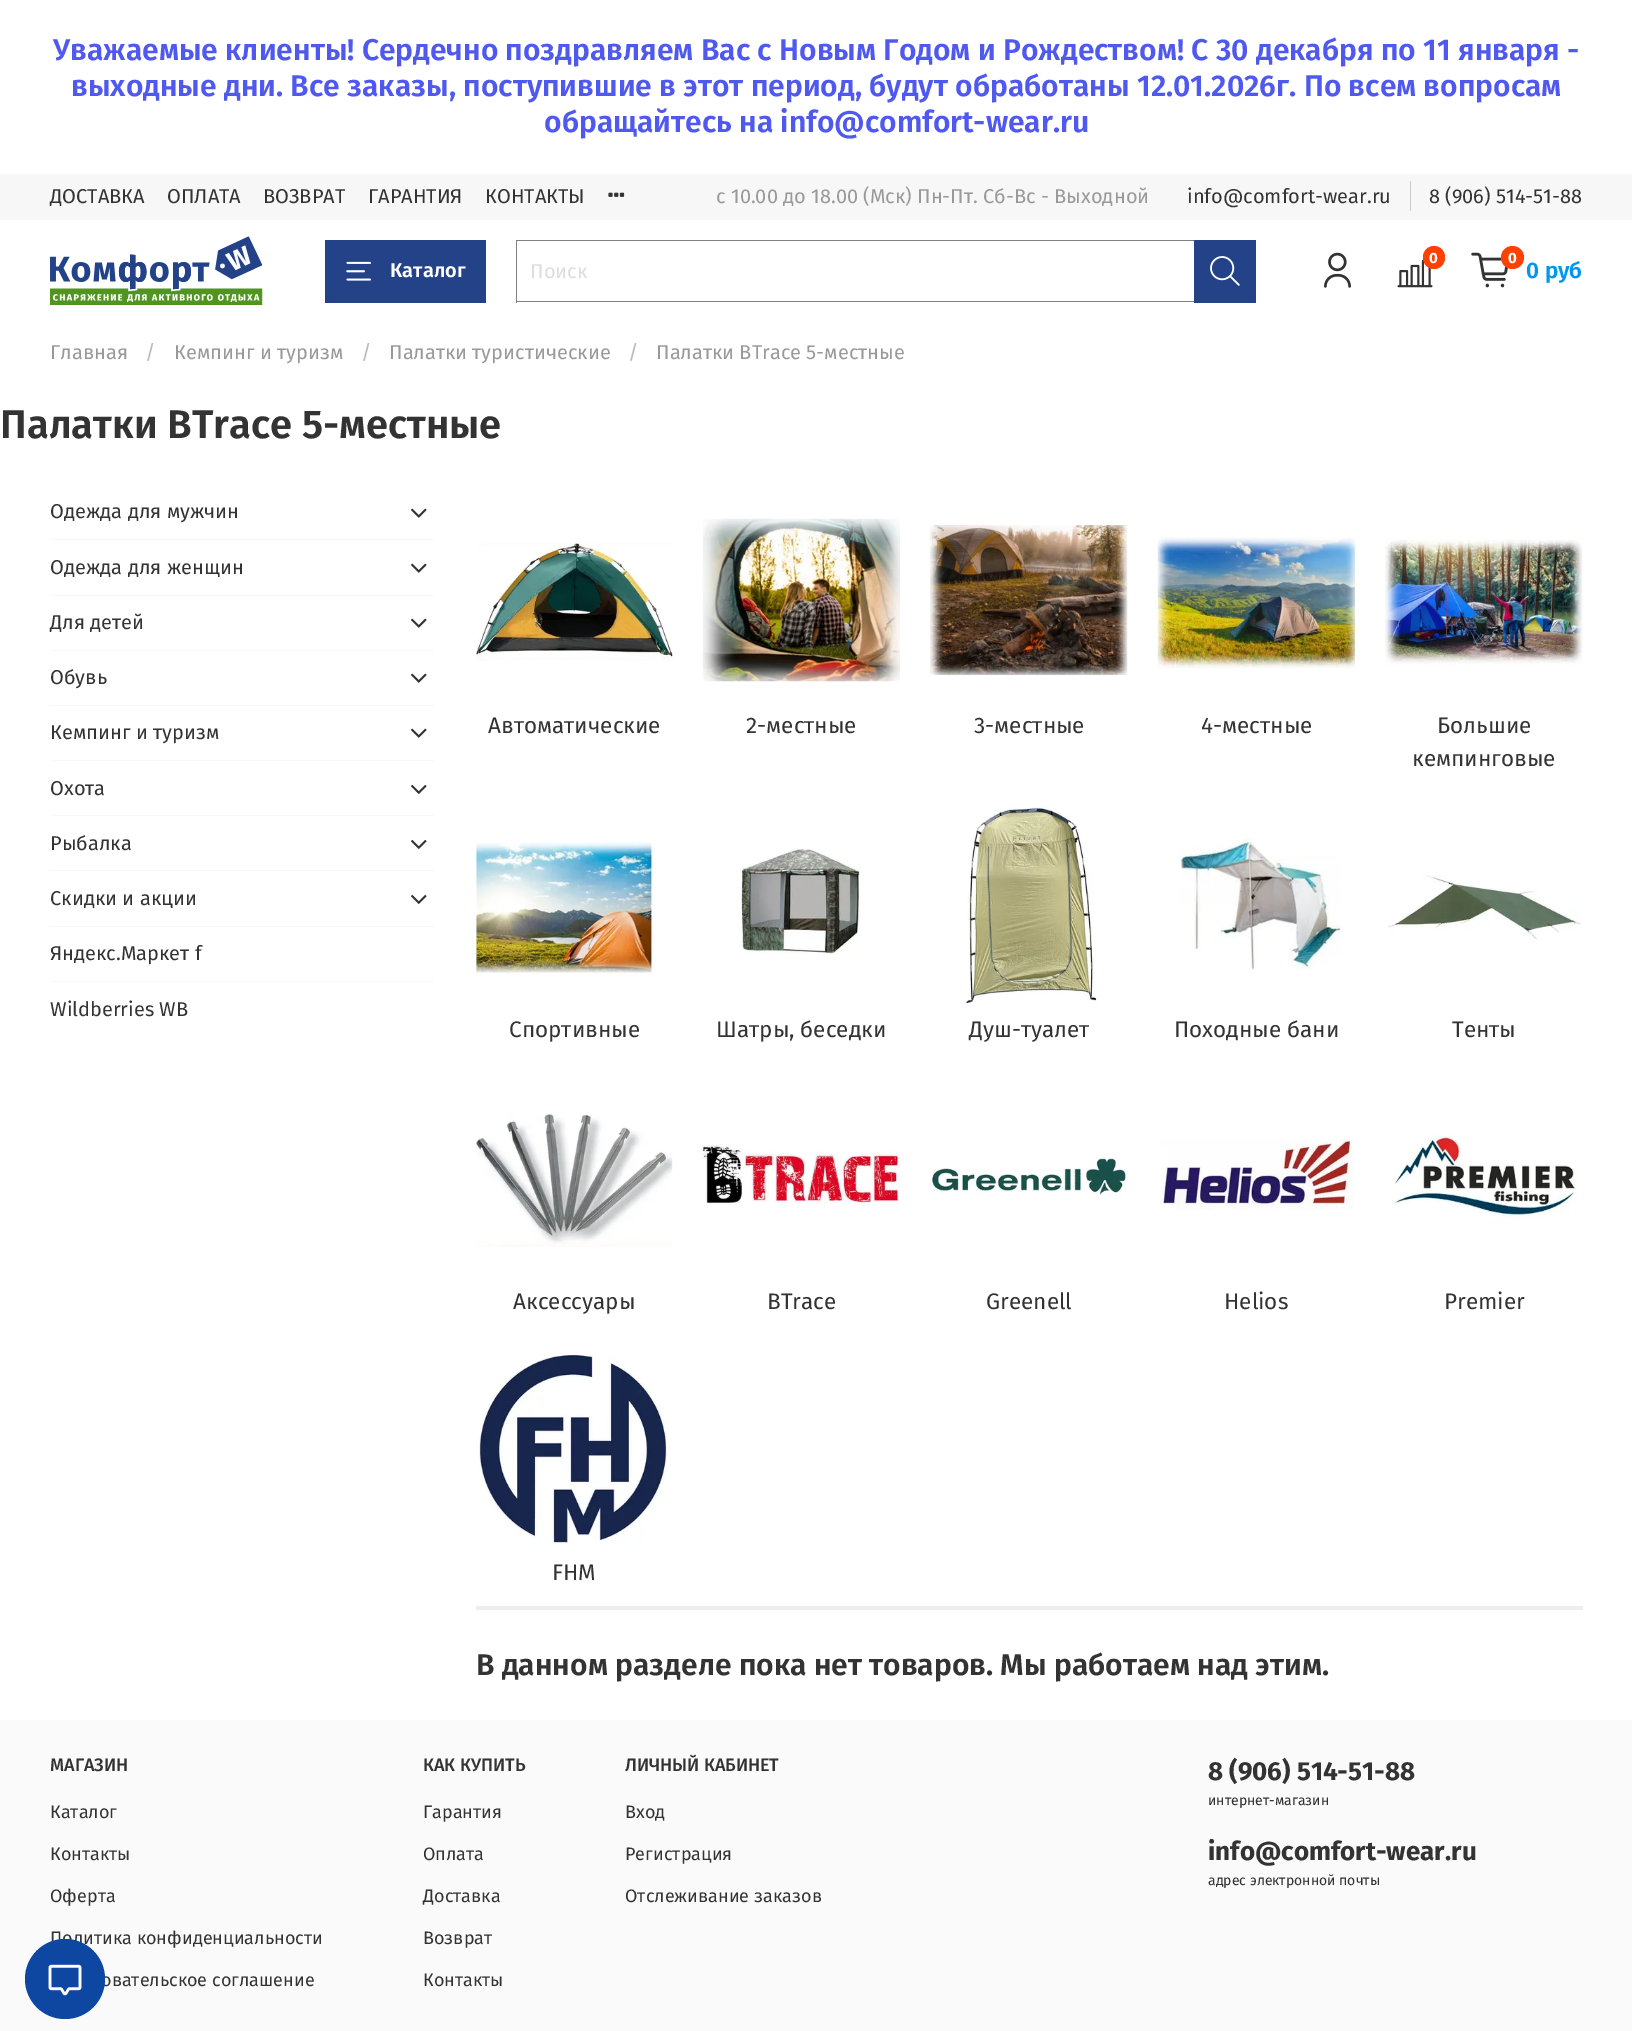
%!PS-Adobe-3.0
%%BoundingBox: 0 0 1632 2031
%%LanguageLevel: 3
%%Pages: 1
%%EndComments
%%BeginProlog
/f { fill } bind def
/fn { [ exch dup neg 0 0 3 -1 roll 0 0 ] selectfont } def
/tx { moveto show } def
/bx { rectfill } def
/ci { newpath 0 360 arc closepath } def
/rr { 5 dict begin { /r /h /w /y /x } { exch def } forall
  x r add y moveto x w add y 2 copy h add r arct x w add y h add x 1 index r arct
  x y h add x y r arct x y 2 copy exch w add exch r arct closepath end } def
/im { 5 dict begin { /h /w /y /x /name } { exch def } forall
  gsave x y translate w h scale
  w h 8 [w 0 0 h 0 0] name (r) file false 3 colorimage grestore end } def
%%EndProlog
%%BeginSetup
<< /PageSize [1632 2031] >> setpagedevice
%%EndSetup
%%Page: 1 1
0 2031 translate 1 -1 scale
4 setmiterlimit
1 setgray
0 0 1632 2031 bx
/FiraSans-SemiBold 30 fn
0.31 0.349 0.941 setrgbcolor
(Уважаемые клиенты! Сердечно поздравляем Вас с Новым Годом и Рождеством! С 30 декабря по 11 января -) 53 60 tx
(выходные дни. Все заказы, поступившие в этот период, будут обработаны 12.01.2026г. По всем вопросам) 71 96 tx
(обращайтесь на info@comfort-wear.ru) 544 132 tx
0.969 setgray
0 174 1632 46 bx
/FiraSans-Regular 20 fn
0.2 setgray
(ДОСТАВКА) 50 203 tx
(ОПЛАТА) 167 203 tx
(ВОЗВРАТ) 263 203 tx
(ГАРАНТИЯ) 368 203 tx
(КОНТАКТЫ) 485 203 tx
(image0.raw) 608 192 17 5 im
0.6 setgray
(с 10.00 до 18.00 \(Мск\) Пн-Пт. Cб-Вс - Выходной) 716 203 tx
0.8 setgray
1410 181 1 30 bx
0.2 setgray
(info@comfort-wear.ru) 1187 203 tx
(8 \(906\) 514-51-88) 1429 203 tx
(image1.raw) 50 236 213 69 im
0.137 0.259 0.529 setrgbcolor
325 240 161 63 bx
(image2.raw) 346 261 26 20 im
/FiraSans-SemiBold 20 fn
1 setgray
(Каталог) 390 277 tx
0.502 setgray
516 240 678 1 bx
516 301 678 1 bx
516 240 1 63 bx
/FiraSans-Regular 20 fn
0.867 setgray
(Поиск) 530 278 tx
0.137 0.259 0.529 setrgbcolor
1194 240 62 63 bx
(image3.raw) 1210 256 30 30 im
(image4.raw) 1324 252 27 36 im
(image5.raw) 1397 259 36 29 im
1 0.255 0 setrgbcolor
1423 246 22 23 11 rr f
/FiraSans-Bold 15 fn
1 setgray
(0) 1429 263 tx
(image6.raw) 1471 252 37 36 im
1 0.255 0 setrgbcolor
1512.5 257.5 11.5 ci f
1 setgray
(0) 1508 263 tx
/FiraSans-SemiBold 22.5 fn
0 0.592 0.945 setrgbcolor
(0 руб) 1526 278 tx
/FiraSans-Regular 20 fn
0.6 setgray
(Главная) 50 359 tx
0.722 setgray
(/) 145 359 tx
0.6 setgray
(Кемпинг и туризм) 174 359 tx
0.722 setgray
(/) 361 359 tx
0.6 setgray
(Палатки туристические) 389 359 tx
0.722 setgray
(/) 628 359 tx
0.6 setgray
(Палатки BTrace 5-местные) 656 359 tx
/FiraSans-SemiBold 40 fn
0.2 setgray
(Палатки BTrace 5-местные) 0 438 tx
0.969 setgray
50 539 384 1 bx
/FiraSans-Regular 20 fn
0.2 setgray
(Одежда для мужчин) 50 518 tx
(image7.raw) 411 508 16 10 im
0.969 setgray
50 595 384 1 bx
0.2 setgray
(Одежда для женщин) 50 574 tx
(image7.raw) 411 563 16 10 im
0.969 setgray
50 650 384 1 bx
0.2 setgray
(Для детей) 50 629 tx
(image7.raw) 411 618 16 10 im
0.969 setgray
50 705 384 1 bx
0.2 setgray
(Обувь) 50 684 tx
(image7.raw) 411 673 16 10 im
0.969 setgray
50 760 384 1 bx
0.2 setgray
(Кемпинг и туризм) 50 739 tx
(image7.raw) 411 728 16 10 im
0.969 setgray
50 815 384 1 bx
0.2 setgray
(Охота) 50 795 tx
(image8.raw) 411 784 16 10 im
0.969 setgray
50 870 384 1 bx
0.2 setgray
(Рыбалка) 50 850 tx
(image8.raw) 411 839 16 10 im
0.969 setgray
50 926 384 1 bx
0.2 setgray
(Скидки и акции) 50 905 tx
(image8.raw) 411 894 16 10 im
0.969 setgray
50 981 384 1 bx
0.2 setgray
(Яндекс.Маркет f) 50 960 tx
(Wildberries WB) 50 1016 tx
(image9.raw) 476 543 197 118 im
/FiraSans-Regular 22.5 fn
(Автоматические) 488 733 tx
(image10.raw) 702 518 198 164 im
(2-местные) 746 733 tx
(image11.raw) 930 525 198 150 im
(3-местные) 974 733 tx
(image12.raw) 1157 537 198 132 im
(4-местные) 1201 733 tx
(image13.raw) 1385 539 198 127 im
(Большие) 1437 733 tx
(кемпинговые) 1412 766 tx
(image14.raw) 476 842 180 133 im
(Спортивные) 509 1037 tx
(image15.raw) 740 849 121 106 im
(Шатры, беседки) 716 1037 tx
(image16.raw) 966 806 131 197 im
(Душ-туалет) 969 1037 tx
(image17.raw) 1180 838 161 132 im
(Походные бани) 1174 1037 tx
(image18.raw) 1388 875 193 65 im
(Тенты) 1452 1037 tx
(image19.raw) 476 1114 197 133 im
(Аксессуары) 513 1309 tx
(image20.raw) 702 1145 198 60 im
(BTrace) 767 1309 tx
(image21.raw) 930 1156 197 40 im
(Greenell) 986 1309 tx
(image22.raw) 1160 1139 195 71 im
(Helios) 1224 1309 tx
(image23.raw) 1394 1134 183 85 im
(Premier) 1444 1309 tx
(image24.raw) 479 1354 189 192 im
(FHM) 552 1580 tx
0.929 setgray
476 1606 1107 4 bx
/FiraSans-SemiBold 30 fn
0.2 setgray
(В данном разделе пока нет товаров. Мы работаем над этим.) 476 1675 tx
0.98 setgray
0 1720 1632 311 bx
/FiraSans-Medium 18 fn
0.2 setgray
(МАГАЗИН) 50 1771 tx
/FiraSans-Regular 18 fn
(Каталог) 50 1818 tx
(Контакты) 50 1860 tx
(Оферта) 50 1902 tx
(Политика конфиденциальности) 50 1944 tx
(овательское соглашение) 101 1986 tx
/FiraSans-Medium 18 fn
(КАК КУПИТЬ) 423 1771 tx
/FiraSans-Regular 18 fn
(Гарантия) 423 1818 tx
(Оплата) 423 1860 tx
(Доставка) 423 1902 tx
(Возврат) 423 1944 tx
(Контакты) 423 1986 tx
/FiraSans-Medium 18 fn
(ЛИЧНЫЙ КАБИНЕТ) 625 1771 tx
/FiraSans-Regular 18 fn
(Вход) 625 1818 tx
(Регистрация) 625 1860 tx
(Отслеживание заказов) 625 1902 tx
/FiraSans-Bold 26 fn
(8 \(906\) 514-51-88) 1208 1780 tx
/FiraSans-Regular 14 fn
(интернет-магазин) 1208 1805 tx
/FiraSans-Bold 26 fn
(info@comfort-wear.ru) 1208 1860 tx
/FiraSans-Regular 14 fn
(адрес электронной почты) 1208 1885 tx
0.051 0.278 0.631 setrgbcolor
65 1979 40 ci f
(image25.raw) 48 1964 34 32 im
showpage
%%EOF
